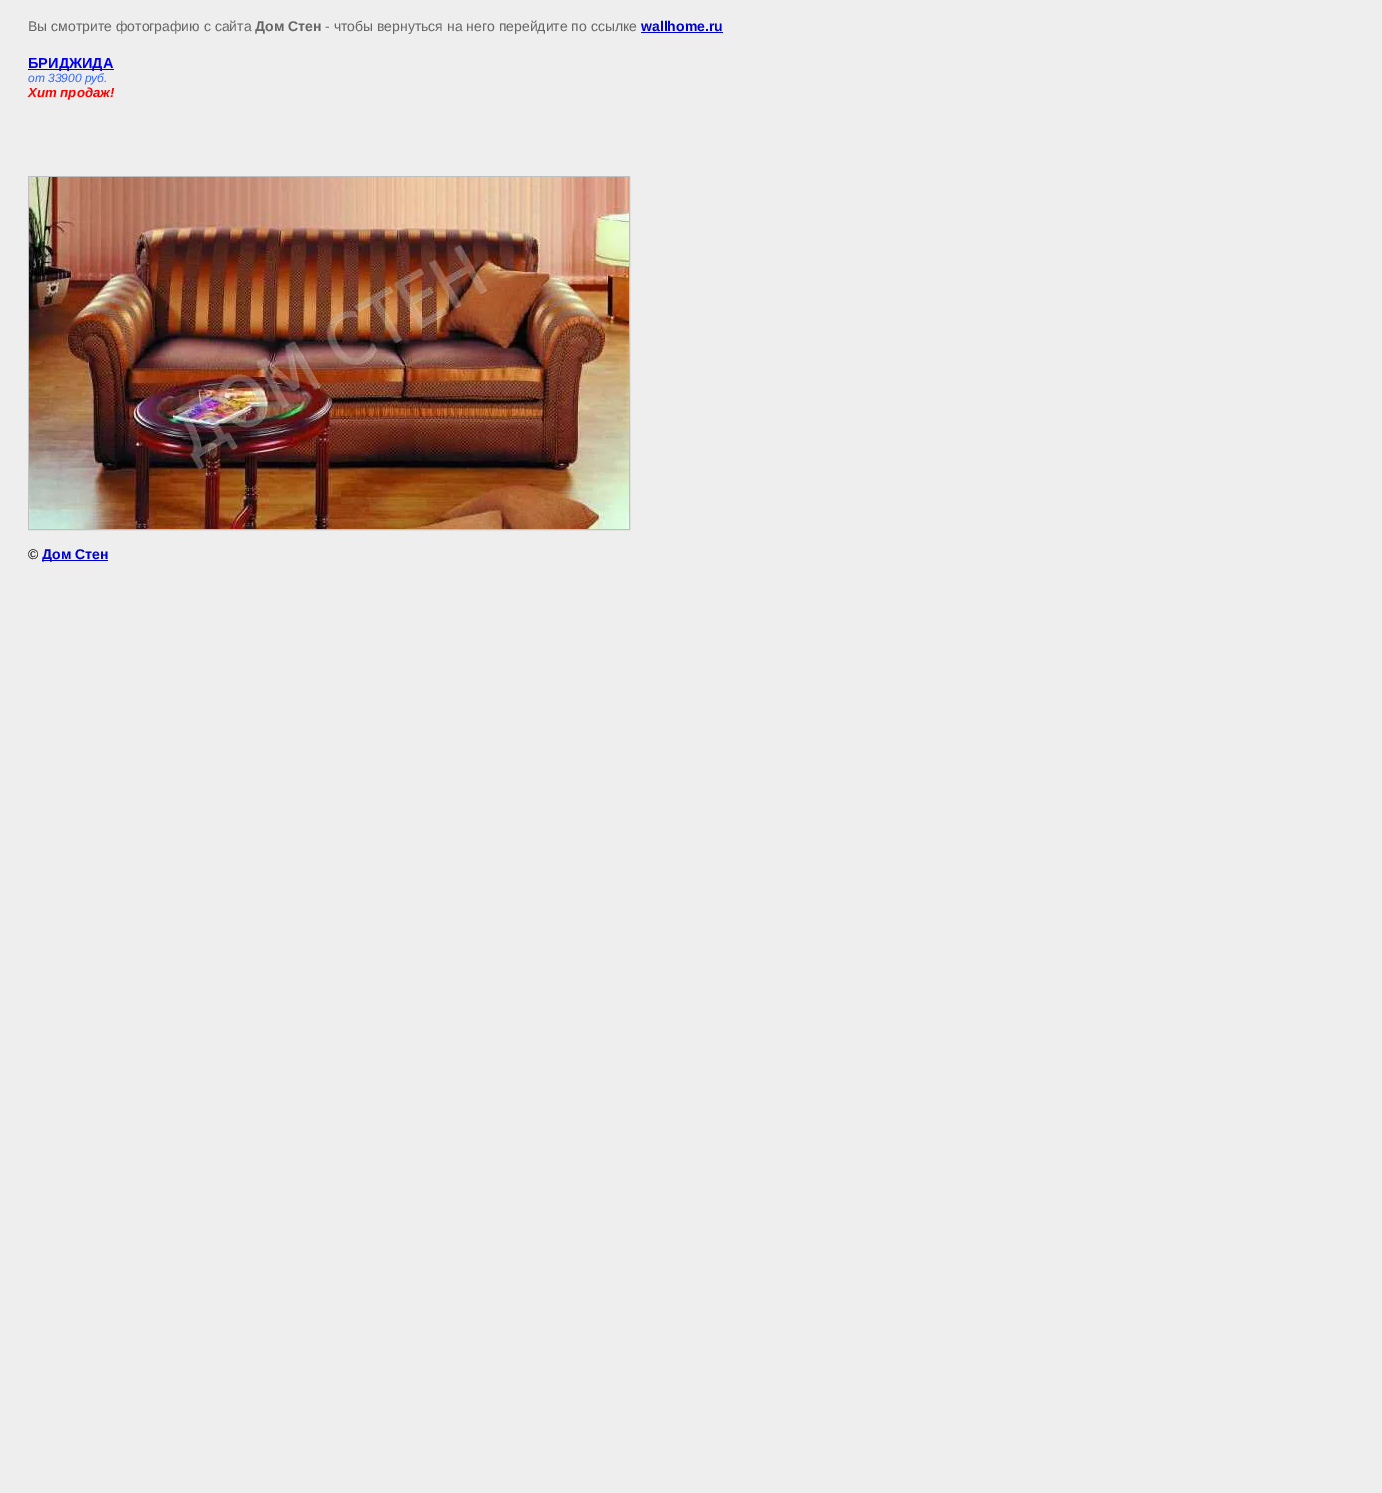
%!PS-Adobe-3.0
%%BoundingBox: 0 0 1382 1493
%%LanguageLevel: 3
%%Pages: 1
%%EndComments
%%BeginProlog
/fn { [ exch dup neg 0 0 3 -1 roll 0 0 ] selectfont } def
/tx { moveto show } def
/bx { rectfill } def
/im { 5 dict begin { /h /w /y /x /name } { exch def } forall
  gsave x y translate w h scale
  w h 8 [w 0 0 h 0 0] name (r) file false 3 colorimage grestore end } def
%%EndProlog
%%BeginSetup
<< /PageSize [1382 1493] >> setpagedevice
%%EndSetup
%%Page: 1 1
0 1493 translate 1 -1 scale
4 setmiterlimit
0.933 setgray
0 0 1382 1493 bx
/LiberationSans-Regular 14 fn
0.4 setgray
(Вы смотрите фотографию с сайта) 28 31 tx
/LiberationSans-Bold 14 fn
(Дом Стен) 255 31 tx
/LiberationSans-Regular 14 fn
(- чтобы вернуться на него перейдите по ссылке) 325 31 tx
/LiberationSans-Bold 14 fn
0 0 0.8 setrgbcolor
(wallhome.ru) 641 31 tx
641 32 82 1 bx
0 0 0.933 setrgbcolor
28 69 86 1 bx
/LiberationSans-Bold 14.5 fn
(БРИДЖИДА) 28 68 tx
/LiberationSans-Italic 12 fn
0.2 0.4 1 setrgbcolor
(от 33900 руб.) 28 82 tx
/LiberationSans-BoldItalic 13.25 fn
1 0 0 setrgbcolor
(Хит продаж!) 28 97 tx
0.753 setgray
28.5 176.5 601 353 rectstroke
(image0.raw) 29 177 600 352 im
/LiberationSans-Regular 14 fn
0 setgray
(©) 28 559 tx
0 0 0.8 setrgbcolor
42 560 66 1 bx
/LiberationSans-Bold 14 fn
(Дом Стен) 42 559 tx
showpage
%%EOF
